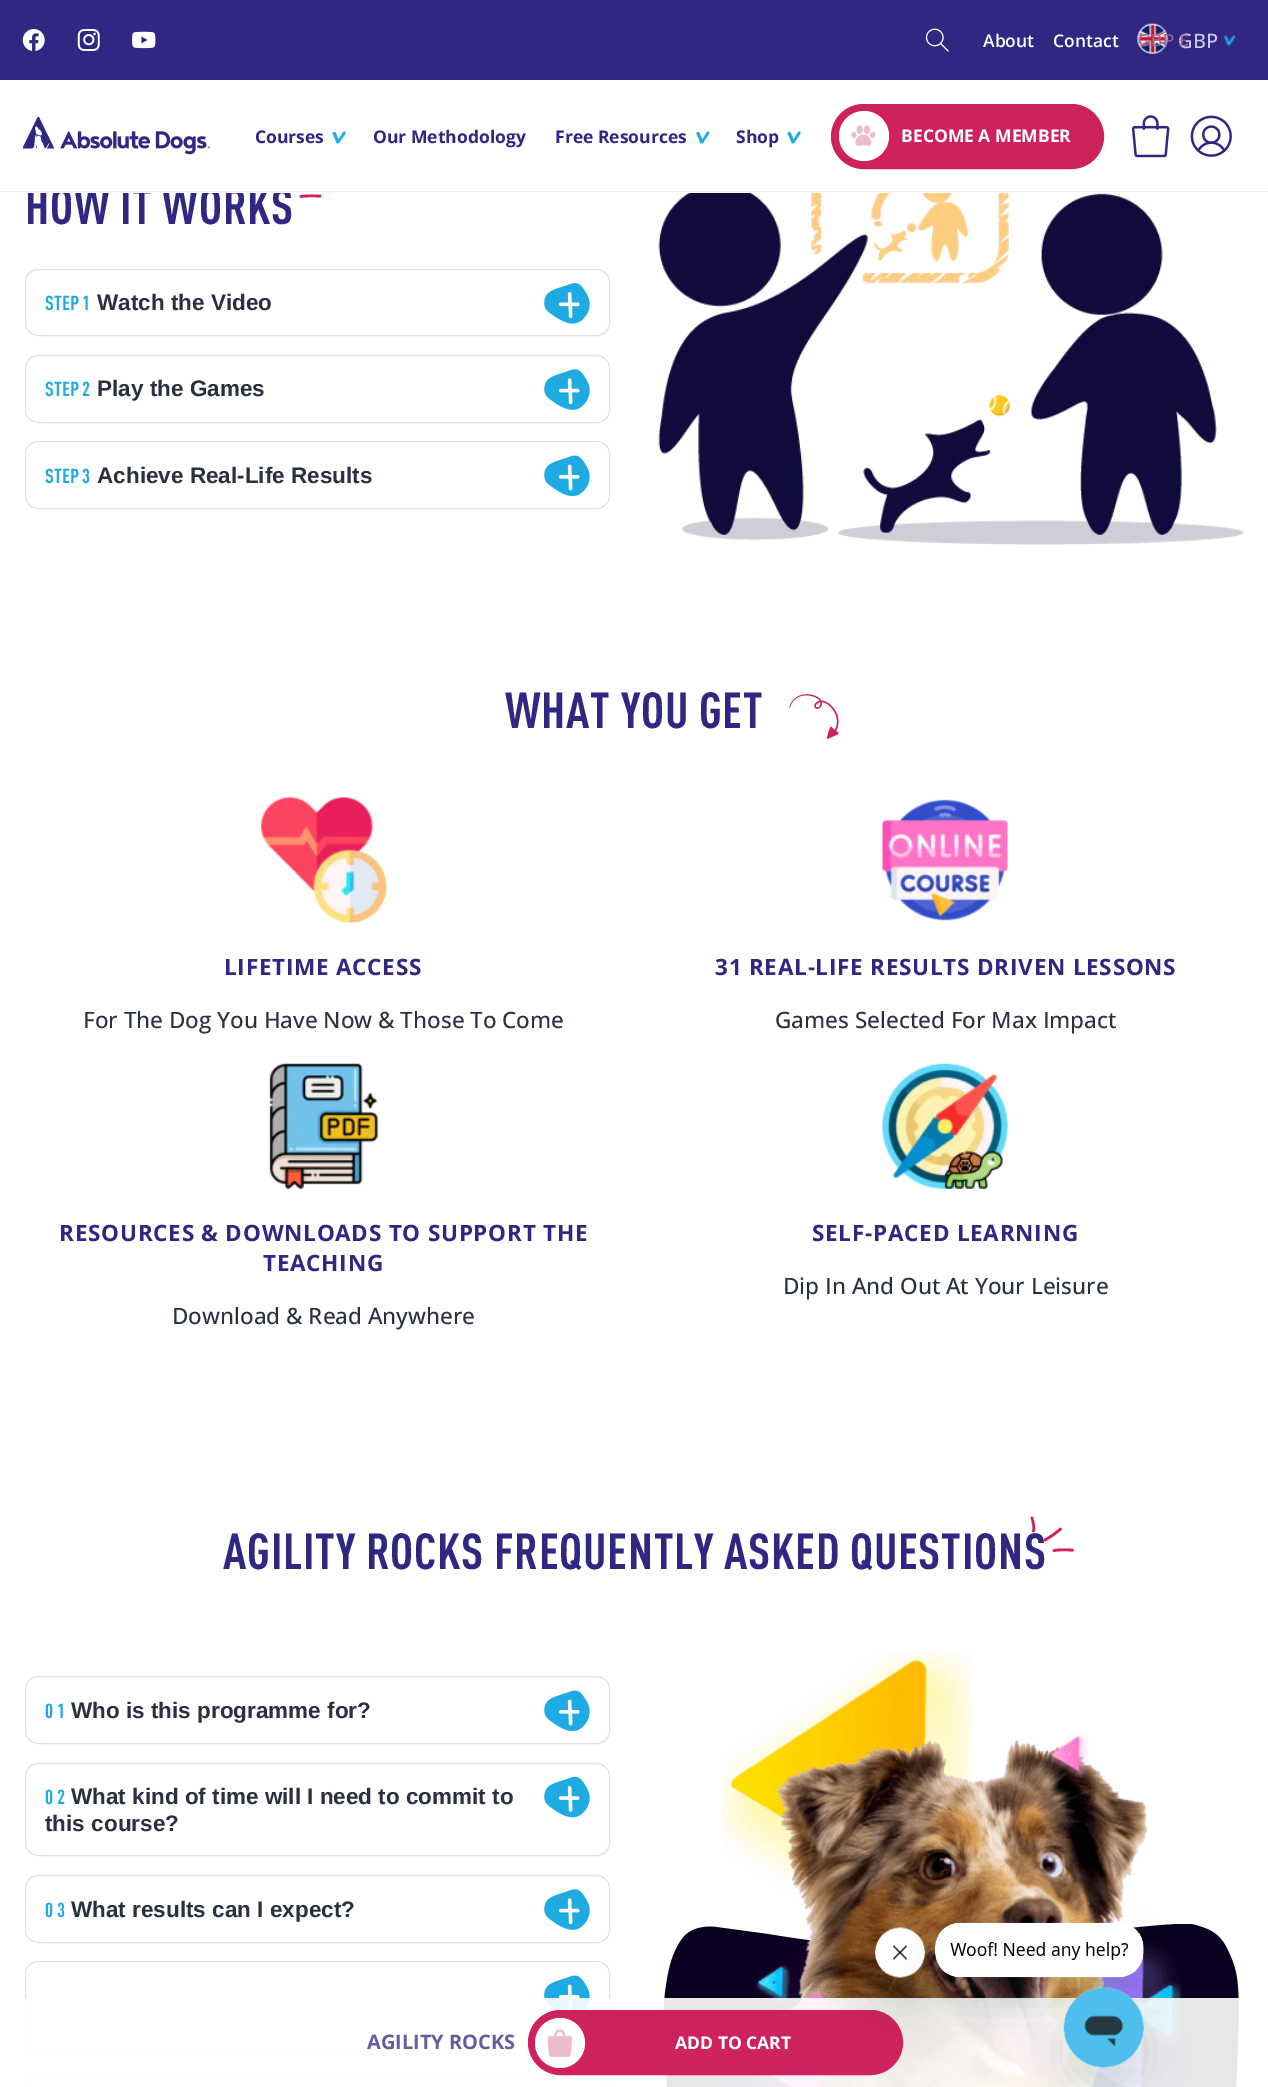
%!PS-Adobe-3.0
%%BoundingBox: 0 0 1268 2087
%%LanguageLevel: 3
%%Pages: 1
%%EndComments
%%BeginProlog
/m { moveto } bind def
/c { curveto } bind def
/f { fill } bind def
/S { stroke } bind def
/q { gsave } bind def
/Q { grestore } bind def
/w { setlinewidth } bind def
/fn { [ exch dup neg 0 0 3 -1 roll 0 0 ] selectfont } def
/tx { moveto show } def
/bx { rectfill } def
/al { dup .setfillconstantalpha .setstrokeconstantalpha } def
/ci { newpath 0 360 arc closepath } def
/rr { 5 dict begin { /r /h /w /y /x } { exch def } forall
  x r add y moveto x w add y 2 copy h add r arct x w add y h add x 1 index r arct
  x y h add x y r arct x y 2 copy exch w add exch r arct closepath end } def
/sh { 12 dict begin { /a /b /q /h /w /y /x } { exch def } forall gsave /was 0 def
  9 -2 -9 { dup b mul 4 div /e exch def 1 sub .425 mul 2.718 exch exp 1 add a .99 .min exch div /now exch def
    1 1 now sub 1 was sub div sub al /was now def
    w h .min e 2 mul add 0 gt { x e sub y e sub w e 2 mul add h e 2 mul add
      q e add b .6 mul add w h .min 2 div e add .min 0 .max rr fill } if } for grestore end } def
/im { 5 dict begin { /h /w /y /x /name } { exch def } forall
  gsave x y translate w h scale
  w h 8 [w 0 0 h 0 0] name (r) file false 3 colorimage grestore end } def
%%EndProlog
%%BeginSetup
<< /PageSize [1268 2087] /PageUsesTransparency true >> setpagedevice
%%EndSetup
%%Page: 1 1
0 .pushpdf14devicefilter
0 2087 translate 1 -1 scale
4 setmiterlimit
1 setgray
0 0 1268 2087 bx
/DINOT-Bold 50 fn
0.192 0.153 0.514 setrgbcolor
25 224 m 0.75 0 (HOW IT WORKS) ashow
1 setgray
28 188 263 5 bx
0.937 0.933 0.961 setrgbcolor
0 191 1268 1 bx
0.192 0.153 0.514 setrgbcolor
0 0 1268 80 bx
(image0.raw) 22 29 23 22 im
(image1.raw) 77 29 23 22 im
(image2.raw) 132 31 24 18 im
(image3.raw) 925 28 24 24 im
/OpenSans-SemiBold 17.5 fn
1 setgray
(About) 983 47 tx
(Contact) 1053 47 tx
(image4.raw) 1223 35 13 12 im
(image5.raw) 1137 23 31 31 im
/OpenSans-Medium 20 fn
0.8 0.788 0.878 setrgbcolor
(GBP) 1178 48 tx
/LiberationSans-Regular 17 fn
0.624 0.427 0.58 setrgbcolor
(GBP £) 1138 46 tx
(image6.raw) 23 116 187 39 im
/OpenSans-Bold 17.5 fn
0.192 0.153 0.514 setrgbcolor
(Courses) 255 143 tx
(image7.raw) 332 131 14 13 im
(Our Methodology) 373 143 tx
(Free Resources) 555 143 tx
(image8.raw) 696 131 14 13 im
(Shop) 736 143 tx
(image7.raw) 787 131 14 13 im
0.808 0.133 0.361 setrgbcolor
831.5 104.5 272 64 32 rr q f Q
S
1 setgray
864 136 25 ci f
(image9.raw) 851 125 25 21 im
(BECOME A MEMBER) 901 142 tx
(image10.raw) 1131 115 39 43 im
(image11.raw) 1190 115 42 42 im
0.808 0.133 0.361 setrgbcolor
2.6 w
1 setlinecap
301 196.5 m 307.5 195.5 314 196 320 196 c S
0.878 0.875 0.925 setrgbcolor
1 w
0 setlinecap
25.5 269.5 584 66 12.5 rr S
/DINOT-Bold 20 fn
0.118 0.671 0.89 setrgbcolor
(STEP 1) 45 310 tx
/LiberationSans-Bold 22.5 fn
0.161 0.188 0.251 setrgbcolor
(Watch the Video) 97 310 tx
(image12.raw) 544 283 46 41 im
0.878 0.875 0.925 setrgbcolor
25.5 355.5 584 67 12.5 rr S
/DINOT-Bold 20 fn
0.118 0.671 0.89 setrgbcolor
(STEP 2) 45 396 tx
/LiberationSans-Bold 22.5 fn
0.161 0.188 0.251 setrgbcolor
(Play the Games) 97 396 tx
(image13.raw) 544 369 46 41 im
0.878 0.875 0.925 setrgbcolor
25.5 441.5 584 67 12.5 rr S
/DINOT-Bold 20 fn
0.118 0.671 0.89 setrgbcolor
(STEP 3) 45 483 tx
/LiberationSans-Bold 22.5 fn
0.161 0.188 0.251 setrgbcolor
(Achieve Real-Life Results) 97 483 tx
(image14.raw) 544 455 46 41 im
(image15.raw) 658 193 586 352 im
/DINOT-Bold 50 fn
0.192 0.153 0.514 setrgbcolor
505 728 m 0.75 0 (WHAT YOU GET) ashow
(image16.raw) 789 694 50 45 im
(image17.raw) 261 797 126 126 im
/OpenSans-Bold 22.5 fn
224 975 m 0.75 0 (LIFETIME ACCESS) ashow
/OpenSans-Medium 22.5 fn
0.161 0.188 0.251 setrgbcolor
(For The Dog You Have Now & Those To Come) 83 1028 tx
(image18.raw) 882 799 126 123 im
/OpenSans-Bold 22.5 fn
0.192 0.153 0.514 setrgbcolor
715 975 m 0.75 0 (31 REAL-LIFE RESULTS DRIVEN LESSONS) ashow
/OpenSans-Medium 22.5 fn
0.161 0.188 0.251 setrgbcolor
(Games Selected For Max Impact) 775 1028 tx
(image19.raw) 269 1063 110 126 im
/OpenSans-Bold 22.5 fn
0.192 0.153 0.514 setrgbcolor
59 1241 m 0.75 0 (RESOURCES & DOWNLOADS TO SUPPORT THE) ashow
263 1271 m 0.75 0 (TEACHING) ashow
/OpenSans-Medium 22.5 fn
0.161 0.188 0.251 setrgbcolor
(Download & Read Anywhere) 172 1324 tx
(image20.raw) 882 1063 126 126 im
/OpenSans-Bold 22.5 fn
0.192 0.153 0.514 setrgbcolor
812 1241 m 0.75 0 (SELF-PACED LEARNING) ashow
/OpenSans-Medium 22.5 fn
0.161 0.188 0.251 setrgbcolor
(Dip In And Out At Your Leisure) 783 1294 tx
/DINOT-Bold 50 fn
0.192 0.153 0.514 setrgbcolor
223 1569 m 0.75 0 (AGILITY ROCKS FREQUENTLY ASKED QUESTIONS) ashow
0.808 0.133 0.361 setrgbcolor
2.6 w
1 setlinecap
1045 1540 m 1051 1536.5 1055.5 1533.5 1060.5 1529 c 1054 1550.5 m 1060 1549.5 1066.5 1550 1072.5 1550 c 1033.5 1531 m 1034.5 1527.5 1033 1521.5 1032 1518 c S
0.878 0.875 0.925 setrgbcolor
1 w
0 setlinecap
25.5 1676.5 584 67 12.5 rr S
/DINOT-Bold 20 fn
0.118 0.671 0.89 setrgbcolor
(0 1) 45 1718 tx
/LiberationSans-Bold 22.5 fn
0.161 0.188 0.251 setrgbcolor
(Who is this programme for?) 71 1718 tx
(image14.raw) 544 1690 46 41 im
0.878 0.875 0.925 setrgbcolor
25.5 1763.5 584 92 12.5 rr S
/DINOT-Bold 20 fn
0.118 0.671 0.89 setrgbcolor
(0 2) 45 1804 tx
/LiberationSans-Bold 22.5 fn
0.161 0.188 0.251 setrgbcolor
(What kind of time will I need to commit to) 71 1804 tx
(image21.raw) 544 1776 46 42 im
(this course?) 45 1831 tx
0.878 0.875 0.925 setrgbcolor
25.5 1875.5 584 67 12.5 rr S
/DINOT-Bold 20 fn
0.118 0.671 0.89 setrgbcolor
(0 3) 45 1917 tx
/LiberationSans-Bold 22.5 fn
0.161 0.188 0.251 setrgbcolor
(What results can I expect?) 71 1917 tx
(image13.raw) 544 1889 46 41 im
0.878 0.875 0.925 setrgbcolor
25.5 1961.5 584 93 12.5 rr S
(image22.raw) 544 1975 46 36 im
25.5 2074.5 584 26 12.5 rr S
(image24.raw) 664 1924 575 163 im
(image23.raw) 722 1651 460 436 im
0.9 al
1 setgray
25 1998 1214 89 bx
/OpenSans-Bold 20 fn
1 al
0.396 0.365 0.635 setrgbcolor
(AGILITY ROCKS) 367 2049 tx
0.808 0.133 0.361 setrgbcolor
528.5 2010.5 374 64 32 rr q f Q
S
1 setgray
560 2043 25 ci f
(image25.raw) 548 2029 25 28 im
/OpenSans-Bold 17.5 fn
(ADD TO CART) 675 2049 tx
0.09 0.286 0.302 setrgbcolor
875 1953 50 50 25 19 0.15 sh
(image27.raw) 875 1927 50 51 im
935 1948 209 55 25 19 0.15 sh
(image26.raw) 935 1922 209 56 im
1064 2013 80 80 40 19 0.15 sh
(image28.raw) 1063 1987 81 81 im
.poppdf14devicefilter showpage
%%EOF
